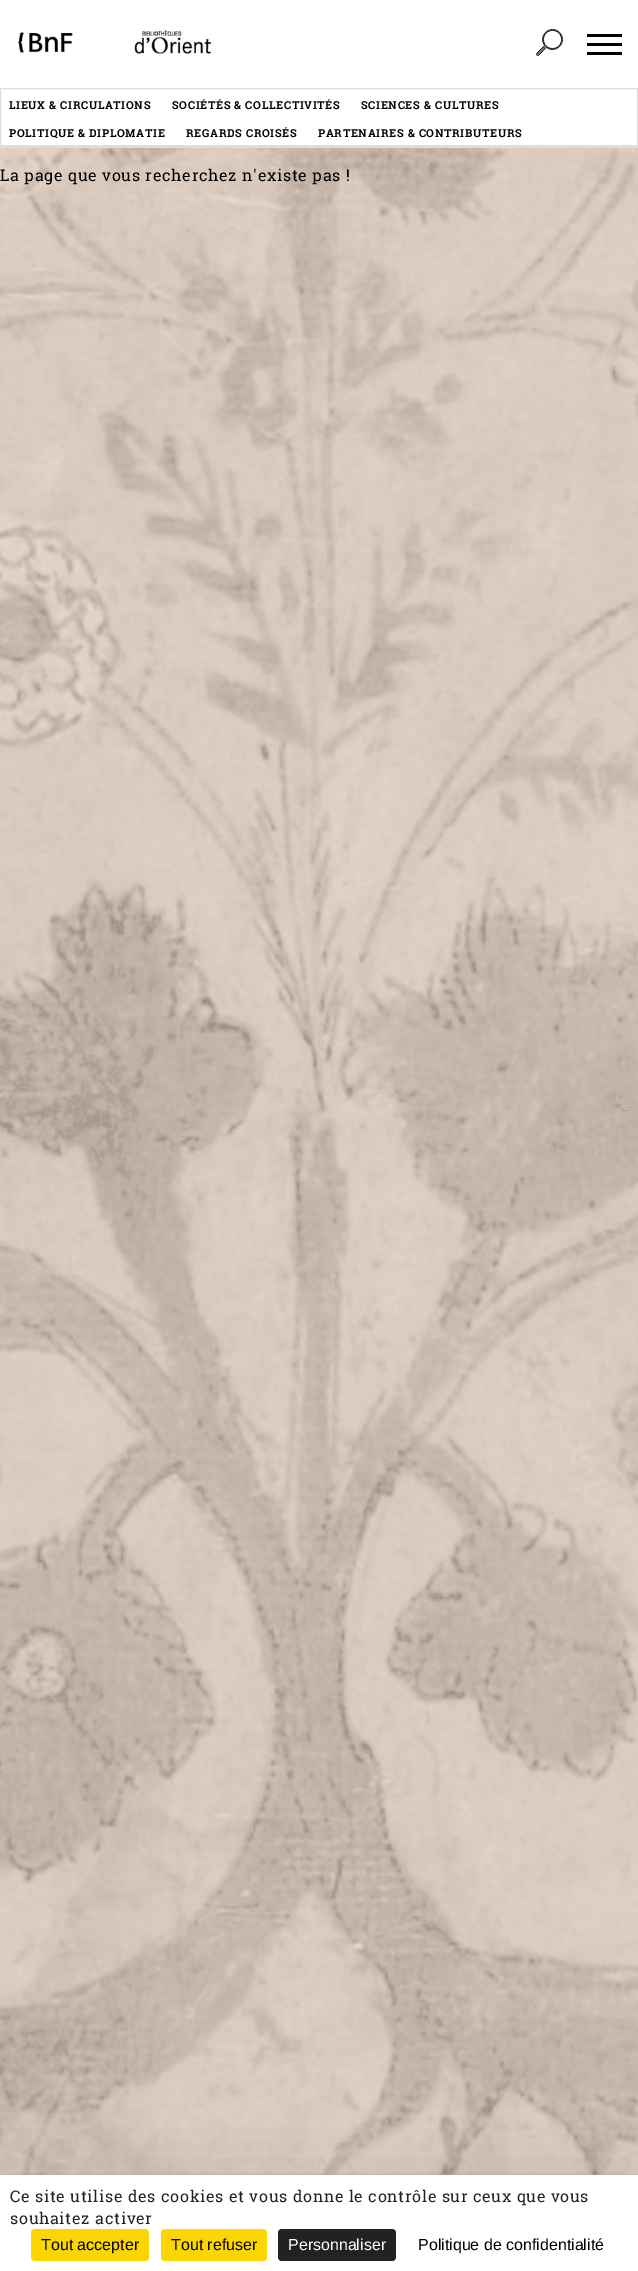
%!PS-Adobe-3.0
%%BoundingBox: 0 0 638 2271
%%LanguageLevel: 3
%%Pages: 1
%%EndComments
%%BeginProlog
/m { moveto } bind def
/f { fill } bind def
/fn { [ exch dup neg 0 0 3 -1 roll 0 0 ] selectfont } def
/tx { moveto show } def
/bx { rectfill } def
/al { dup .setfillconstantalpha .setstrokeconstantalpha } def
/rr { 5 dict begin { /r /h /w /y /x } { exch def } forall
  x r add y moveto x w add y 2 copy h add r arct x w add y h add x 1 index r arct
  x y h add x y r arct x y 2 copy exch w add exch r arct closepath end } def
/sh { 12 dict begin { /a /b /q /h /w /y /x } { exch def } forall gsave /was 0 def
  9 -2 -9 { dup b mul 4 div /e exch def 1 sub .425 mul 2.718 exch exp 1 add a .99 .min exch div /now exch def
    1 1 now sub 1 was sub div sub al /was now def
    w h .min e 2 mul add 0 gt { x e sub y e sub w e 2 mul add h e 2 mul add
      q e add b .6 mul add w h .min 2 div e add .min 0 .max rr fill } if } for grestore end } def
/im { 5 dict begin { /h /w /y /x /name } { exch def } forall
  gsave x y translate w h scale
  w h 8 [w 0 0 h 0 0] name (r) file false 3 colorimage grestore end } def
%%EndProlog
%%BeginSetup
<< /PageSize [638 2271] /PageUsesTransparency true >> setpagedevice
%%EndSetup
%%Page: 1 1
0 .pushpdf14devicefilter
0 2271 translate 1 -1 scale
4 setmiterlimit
1 setgray
0 0 638 2271 bx
(image0.raw) 0 148 638 2027 im
(image1.raw) 17 32 56 21 im
(image2.raw) 134 29 78 25 im
(image3.raw) 535 29 28 28 im
0 setgray
587 34 35 3 bx
587 43 35 3 bx
587 52 35 3 bx
0.867 setgray
0.5 88.5 637 57 rectstroke
/RobotoSlab-Bold 11 fn
0 setgray
9 109 m 0.7 0 (LIEUX & CIRCULATIONS) ashow
172 109 m 0.7 0 (SOCIÉTÉS & COLLECTIVITÉS) ashow
361 109 m 0.7 0 (SCIENCES & CULTURES) ashow
9 137 m 0.7 0 (POLITIQUE & DIPLOMATIE) ashow
186 137 m 0.7 0 (REGARDS CROISÉS) ashow
318 137 m 0.7 0 (PARTENAIRES & CONTRIBUTEURS) ashow
0.867 setgray
0 146 638 2 bx
/RobotoSlab-Regular 16 fn
0 setgray
0 181 m 0.7 0 (La page que vous recherchez n'existe pas !) ashow
0 2195 638 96 0 30 0.25 sh
1 setgray
0 2175 638 96 bx
0.133 setgray
10 2202 m 0.7 0 (Ce site utilise des cookies et vous donne le contrôle sur ceux que vous) ashow
10 2224 m 0.7 0 (souhaitez activer) ashow
0.984 0.839 0 setrgbcolor
31 2229 118 32 4 rr f
/LiberationSans-Regular 16 fn
0 setgray
(Tout accepter) 41 2250 tx
0.984 0.839 0 setrgbcolor
161 2229 106 32 4 rr f
0 setgray
(Tout refuser) 171 2250 tx
0.133 setgray
278 2229 118 32 4 rr f
1 setgray
(Personnaliser) 288 2250 tx
0 setgray
(Politique de confidentialité) 418 2250 tx
.poppdf14devicefilter showpage
%%EOF
